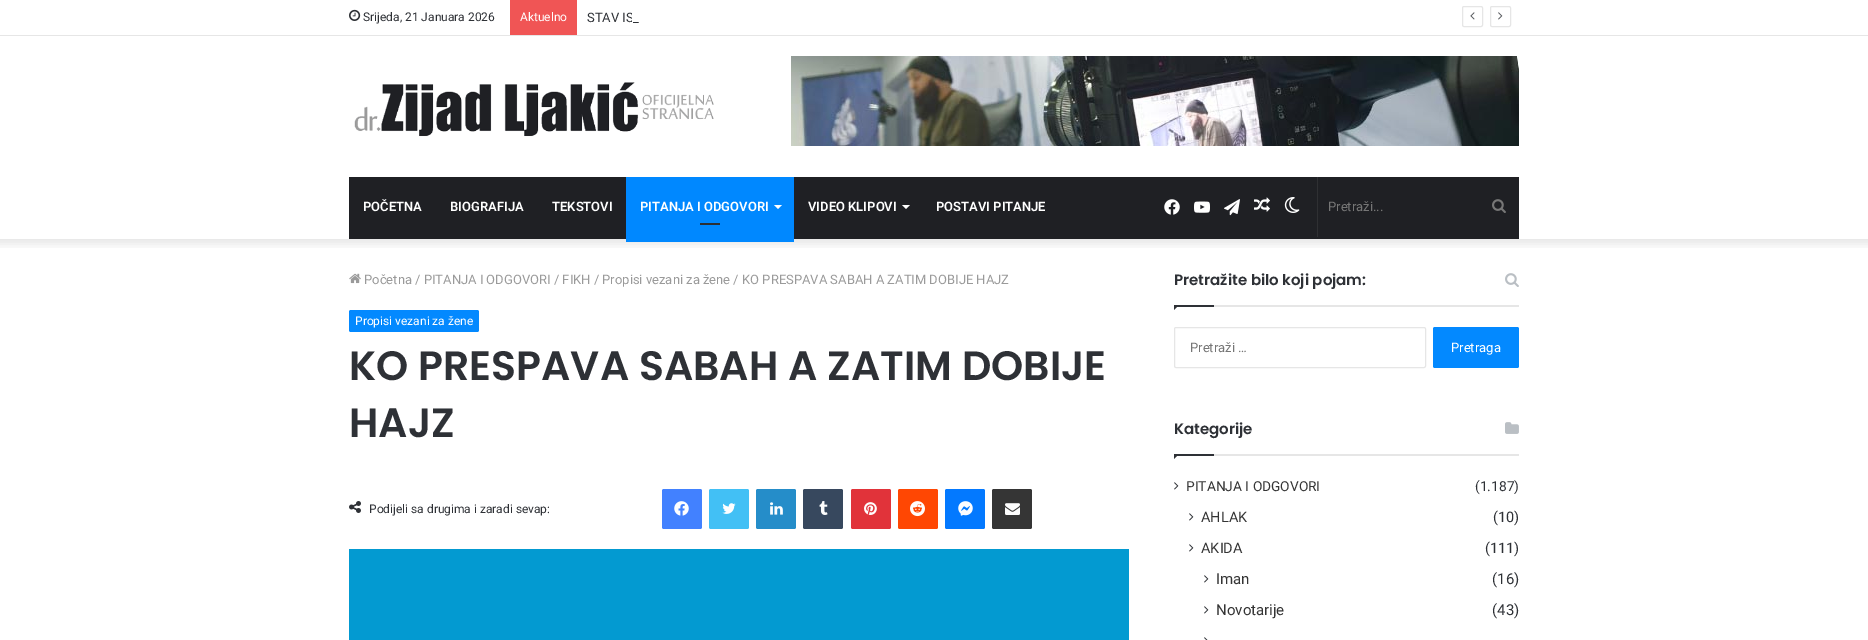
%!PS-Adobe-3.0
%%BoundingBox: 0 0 1868 640
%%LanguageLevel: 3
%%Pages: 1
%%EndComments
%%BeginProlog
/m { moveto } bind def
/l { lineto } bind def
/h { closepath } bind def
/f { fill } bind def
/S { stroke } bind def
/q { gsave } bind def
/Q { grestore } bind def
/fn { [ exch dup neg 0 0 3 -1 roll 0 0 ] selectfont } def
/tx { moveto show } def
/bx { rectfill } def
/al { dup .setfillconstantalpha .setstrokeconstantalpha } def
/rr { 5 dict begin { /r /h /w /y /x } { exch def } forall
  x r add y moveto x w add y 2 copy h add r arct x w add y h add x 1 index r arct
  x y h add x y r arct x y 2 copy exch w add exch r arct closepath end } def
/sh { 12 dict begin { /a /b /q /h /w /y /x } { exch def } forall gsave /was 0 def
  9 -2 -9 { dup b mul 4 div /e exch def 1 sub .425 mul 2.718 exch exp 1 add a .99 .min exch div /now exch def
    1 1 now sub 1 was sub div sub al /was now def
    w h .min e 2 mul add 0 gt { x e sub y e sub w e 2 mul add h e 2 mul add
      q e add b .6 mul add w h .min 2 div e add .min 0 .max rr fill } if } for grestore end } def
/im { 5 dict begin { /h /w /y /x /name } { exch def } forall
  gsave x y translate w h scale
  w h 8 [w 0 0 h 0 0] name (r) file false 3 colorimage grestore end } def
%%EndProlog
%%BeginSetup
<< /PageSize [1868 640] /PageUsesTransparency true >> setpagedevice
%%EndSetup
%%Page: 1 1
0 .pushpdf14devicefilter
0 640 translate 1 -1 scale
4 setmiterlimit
1 setgray
0 0 1868 640 bx
q
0 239 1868 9 rectclip
0 setgray
-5 -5 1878 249 0 5 0.1 sh
Q
0.902 setgray
0 35 1868 1 bx
(image0.raw) 349 9 12 12 im
/Roboto-Regular 12 fn
0.18 0.192 0.212 setrgbcolor
(Srijeda, 21 Januara 2026) 363 21 tx
0.941 0.333 0.333 setrgbcolor
510 0 67 35 bx
1 setgray
(Aktuelno) 520 21 tx
/Roboto-Regular 13 fn
0.18 0.192 0.212 setrgbcolor
(STAV IS) 587 22 tx
1 setgray
632 13 2 9 bx
0.18 0.192 0.212 setrgbcolor
(_) 633 22 tx
0.902 setgray
1462.5 6.5 20 20 1.5 rr S
(image1.raw) 1470 12 5 8 im
1490.5 6.5 20 20 1.5 rr S
(image2.raw) 1498 12 5 8 im
(image3.raw) 354 82 360 55 im
(image4.raw) 791 56 728 90 im
0.122 0.125 0.141 setrgbcolor
349 177 1170 62 bx
/Roboto-SemiBold 13 fn
1 setgray
(POČETNA) 363 211 tx
(BIOGRAFIJA) 450 211 tx
(TEKSTOVI) 552 211 tx
0 0.533 1 setrgbcolor
626 177 168 65 bx
1 setgray
(PITANJA I ODGOVORI) 640 211 tx
774 205 m 782 205 l 778 209 l h f
0.173 0.184 0.204 setrgbcolor
700 223 20 2 bx
1 setgray
(VIDEO KLIPOVI) 808 211 tx
902 205 m 910 205 l 906 209 l h f
(POSTAVI PITANJE) 936 211 tx
(image5.raw) 1164 199 16 16 im
(image6.raw) 1194 201 16 12 im
(image7.raw) 1224 199 16 17 im
(image8.raw) 1254 197 16 15 im
(image9.raw) 1284 197 16 16 im
0.184 0.188 0.2 setrgbcolor
1317 177 1 60 bx
/Roboto-Regular 13 fn
0.463 setgray
(Pretraži...) 1328 211 tx
(image10.raw) 1492 199 14 14 im
(image11.raw) 349 273 12 11 im
0.604 setgray
(Početna / PITANJA I ODGOVORI / FIKH / Propisi vezani za žene / KO PRESPAVA SABAH A ZATIM DOBIJE HAJZ) 364 284 tx
0.012 0.537 1 setrgbcolor
349 310 130 22 2 rr f
/Roboto-Regular 12 fn
1 setgray
(Propisi vezani za žene) 355 325 tx
/Poppins-SemiBold 41 fn
0.18 0.192 0.212 setrgbcolor
(KO PRESPAVA SABAH A ZATIM DOBIJE) 349 380 tx
(HAJZ) 349 437 tx
(image12.raw) 349 501 12 12 im
/Roboto-Regular 12 fn
(Podijeli sa drugima i zaradi sevap:) 369 513 tx
0.259 0.506 1 setrgbcolor
662 489 40 40 2 rr f
(image13.raw) 674 501 15 15 im
0.259 0.753 0.961 setrgbcolor
709 489 40 40 2 rr f
(image14.raw) 722 503 14 11 im
0.145 0.553 0.788 setrgbcolor
756 489 40 40 2 rr f
(image15.raw) 770 502 13 13 im
0.216 0.282 0.369 setrgbcolor
803 489 40 40 2 rr f
(image16.raw) 819 501 9 14 im
0.882 0.2 0.227 setrgbcolor
851 489 40 40 2 rr f
(image17.raw) 864 502 13 13 im
1 0.278 0.012 setrgbcolor
898 489 40 40 2 rr f
(image18.raw) 910 501 15 16 im
0.012 0.475 1 setrgbcolor
945 489 40 40 2 rr f
(image19.raw) 958 501 15 15 im
0.208 setgray
992 489 40 40 2 rr f
(image20.raw) 1005 503 15 12 im
0.012 0.604 0.82 setrgbcolor
349 549 780 91 bx
0.902 setgray
1214 305 305 2 bx
/Poppins-SemiBold 15 fn
0.18 0.192 0.212 setrgbcolor
(Pretražite bilo koji pojam:) 1174 285 tx
(image21.raw) 1505 273 14 14 im
1174 305 m 1179 305 l 1174 310 l h f
1174 305 40 2 bx
0.902 setgray
1174.5 327.5 251 40 1.5 rr S
/Roboto-Regular 13 fn
0.463 setgray
(Pretraži …) 1190 352 tx
0.012 0.537 1 setrgbcolor
1433 327 86 41 2 rr f
1 setgray
(Pretraga) 1451 352 tx
0.902 setgray
1214 454 305 2 bx
/Poppins-SemiBold 15 fn
0.18 0.192 0.212 setrgbcolor
(Kategorije) 1174 434 tx
(image22.raw) 1505 422 14 12 im
1174 454 m 1179 454 l 1174 459 l h f
1174 454 40 2 bx
(image23.raw) 1174 482 5 8 im
/Roboto-Regular 13.75 fn
0.208 setgray
(PITANJA I ODGOVORI) 1186 491 tx
0.18 0.192 0.212 setrgbcolor
(\(1.187\)) 1475 491 tx
(image23.raw) 1189 513 5 8 im
/Roboto-Regular 14.5 fn
0.208 setgray
(AHLAK) 1201 522 tx
0.18 0.192 0.212 setrgbcolor
(\(10\)) 1493 522 tx
(image23.raw) 1189 544 5 8 im
0.208 setgray
(AKIDA) 1201 553 tx
0.18 0.192 0.212 setrgbcolor
(\(111\)) 1485 553 tx
(image23.raw) 1204 575 5 8 im
/Roboto-Regular 15 fn
0.208 setgray
(Iman) 1216 584 tx
0.18 0.192 0.212 setrgbcolor
(\(16\)) 1492 584 tx
(image23.raw) 1204 606 5 8 im
0.208 setgray
(Novotarije) 1216 615 tx
0.18 0.192 0.212 setrgbcolor
(\(43\)) 1492 615 tx
(image24.raw) 1204 637 4 3 im
.poppdf14devicefilter showpage
%%EOF
